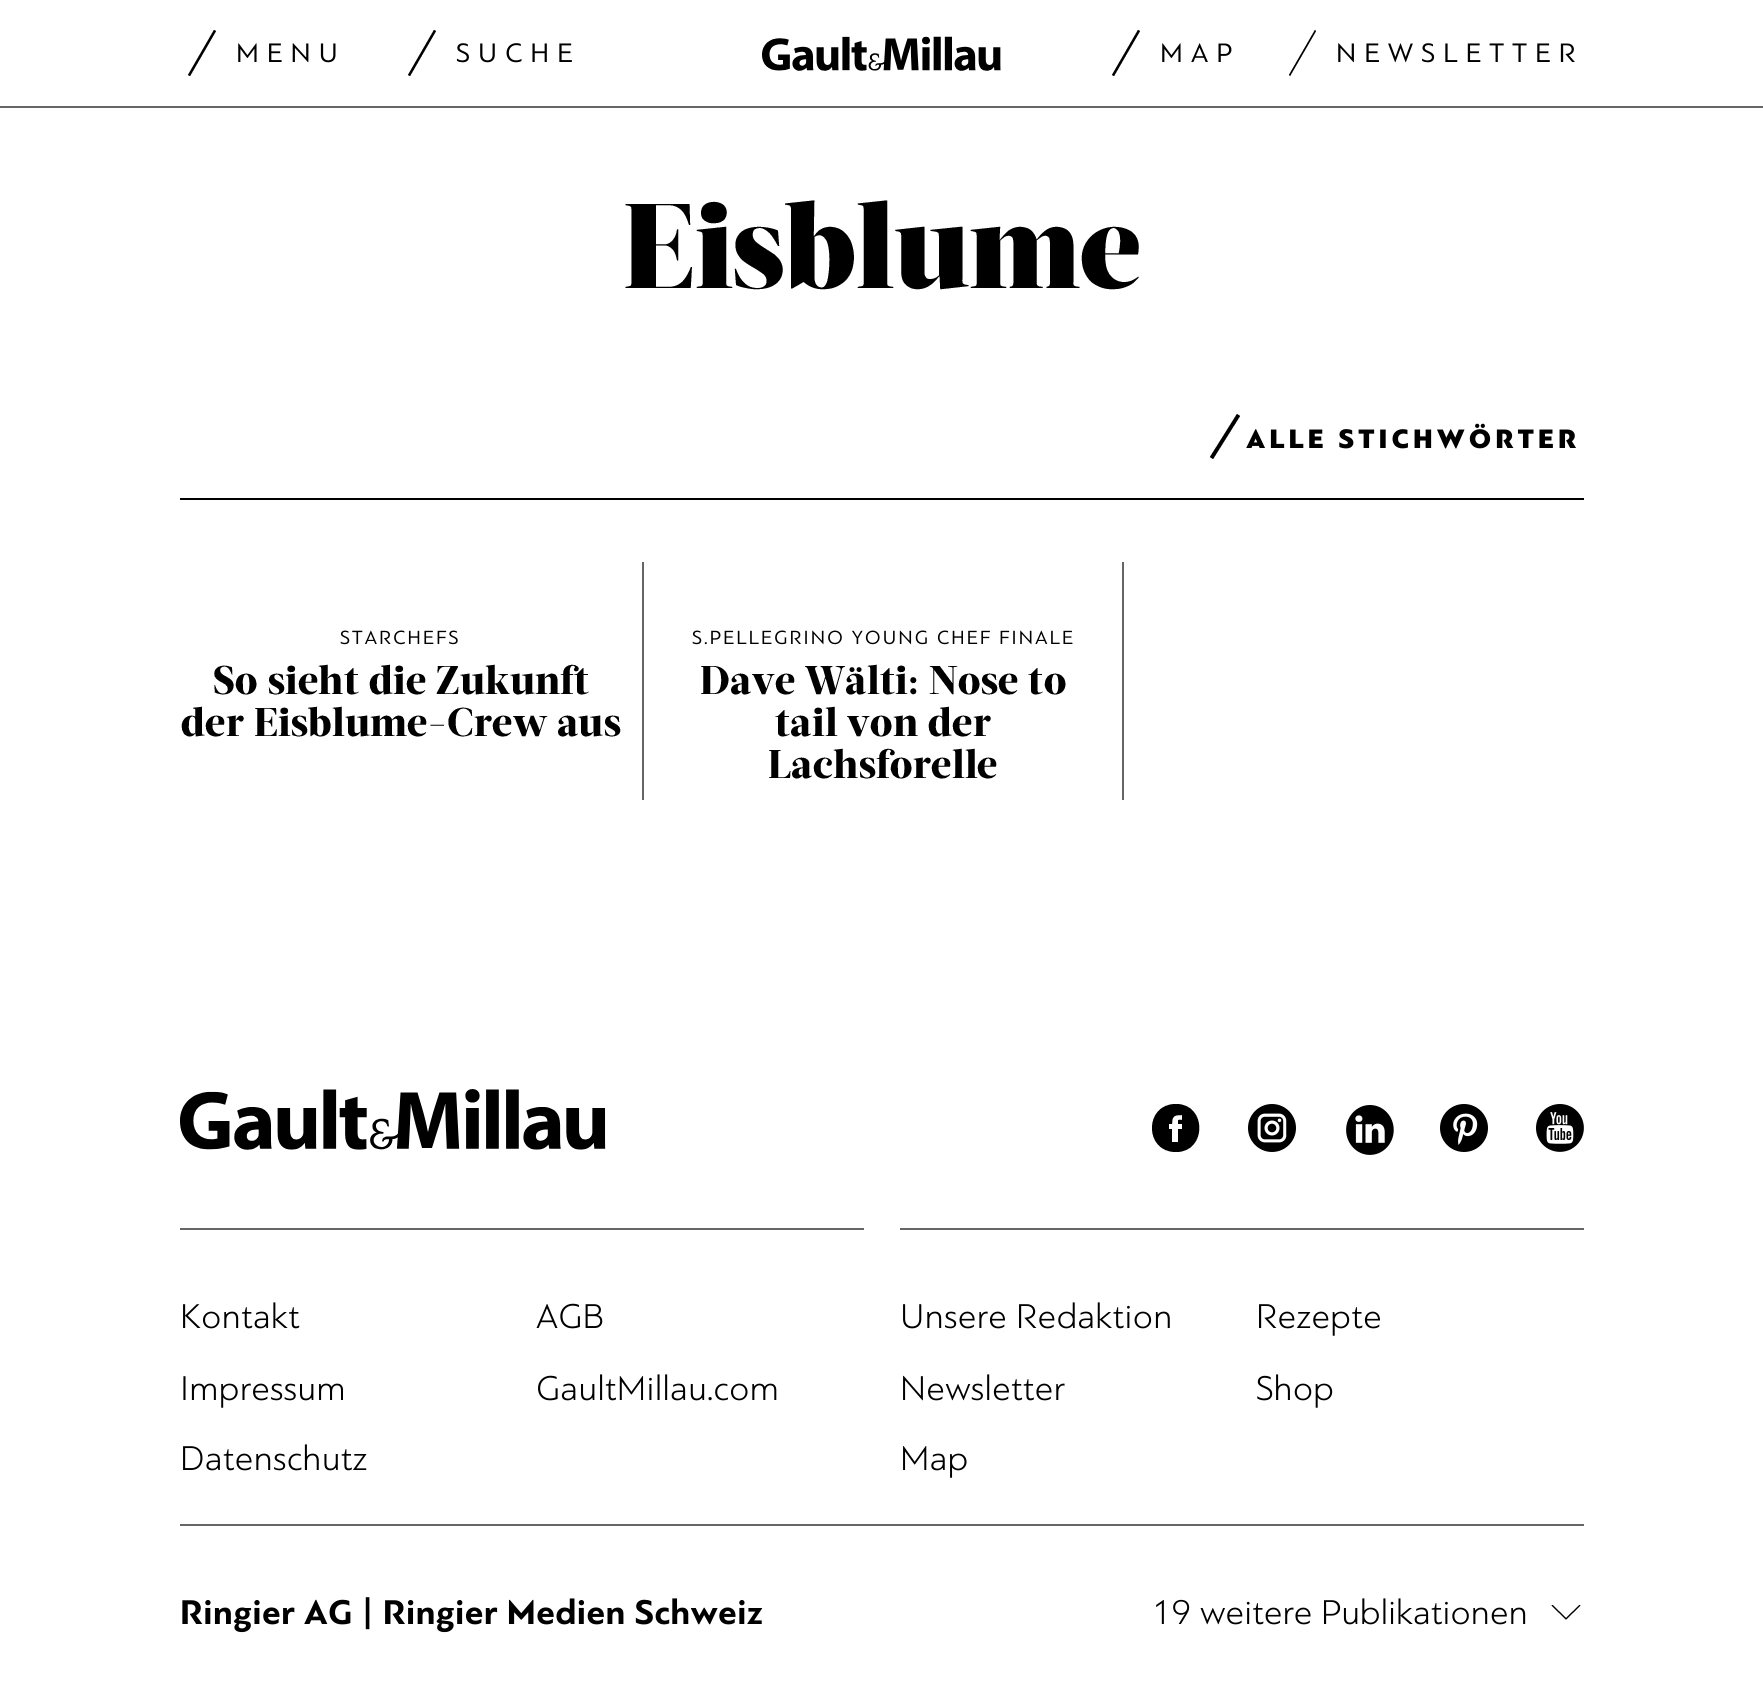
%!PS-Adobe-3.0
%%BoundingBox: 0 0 1763 1692
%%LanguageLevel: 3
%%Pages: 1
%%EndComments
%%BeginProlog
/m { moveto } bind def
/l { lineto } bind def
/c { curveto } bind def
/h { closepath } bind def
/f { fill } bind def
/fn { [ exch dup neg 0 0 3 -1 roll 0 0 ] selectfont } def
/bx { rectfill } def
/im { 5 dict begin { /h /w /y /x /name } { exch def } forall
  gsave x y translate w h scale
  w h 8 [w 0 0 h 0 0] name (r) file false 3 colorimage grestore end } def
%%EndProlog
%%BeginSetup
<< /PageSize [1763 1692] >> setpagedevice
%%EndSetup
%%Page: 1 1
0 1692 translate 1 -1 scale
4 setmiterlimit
1 setgray
0 0 1763 1692 bx
0.4 setgray
0 106 1763 2 bx
0 setgray
188 75 m 214 30 l 216 31 l 190 76 l h f
(image0.raw) 238 43 98 20 im
408 75 m 434 30 l 436 31 l 410 76 l h f
(image1.raw) 456 43 116 20 im
(image2.raw) 762 36 239 35 im
1112 75 m 1138 30 l 1140 31 l 1114 76 l h f
(image3.raw) 1162 43 70 19 im
1289 75 m 1315 30 l 1316 31 l 1290 76 l h f
(image4.raw) 1338 43 237 20 im
/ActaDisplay-Black 120 fn
623 288 m 0.25 0 (Eisblume) ashow
1237 414 m 1210 457 l 1213 459 l 1240 416 l h f
(image5.raw) 1246 423 330 26 im
180 498 1404 2 bx
0.4 setgray
642 562 2 238 bx
(image6.raw) 340 630 118 15 im
/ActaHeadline-ExtraBold 40 fn
0 setgray
213 694 m 0.4 0 (So sieht die Zukunft) ashow
181 736 m 0.4 0 (der Eisblume-Crew aus) ashow
0.4 setgray
1122 562 2 238 bx
(image7.raw) 692 630 381 15 im
0 setgray
700 694 m 0.4 0 (Dave Wälti: Nose to) ashow
775 736 m 0.4 0 (tail von der) ashow
768 778 m 0.4 0 (Lachsforelle) ashow
0.4 setgray
180 1524 1404 2 bx
(image8.raw) 180 1089 426 61 im
0 setgray
1176 1104 m 1144 1104 1144 1152 1176 1152 c 1207 1152 1207 1104 1176 1104 c h 1182 1129 m 1178 1129 l 1178 1142 l 1172 1142 l 1172 1129 l 1169 1129 l 1169 1124 l 1172 1124 l 1172 1116 1174 1115 1182 1115 c 1182 1120 l 1178 1120 1178 1119 1178 1124 c 1182 1124 l h eofill
(image9.raw) 1248 1104 48 48 im
(image10.raw) 1346 1105 48 50 im
(image11.raw) 1440 1104 48 48 im
(image12.raw) 1536 1104 48 48 im
0.4 setgray
180 1228 684 2 bx
(image13.raw) 183 1302 117 27 im
(image14.raw) 536 1303 67 26 im
(image15.raw) 183 1376 160 32 im
(image16.raw) 538 1374 239 27 im
(image17.raw) 183 1444 184 27 im
900 1228 684 2 bx
(image18.raw) 903 1302 267 27 im
(image19.raw) 1259 1304 121 32 im
(image20.raw) 903 1374 162 27 im
(image21.raw) 1257 1374 76 34 im
(image22.raw) 903 1446 64 32 im
(image23.raw) 182 1597 581 36 im
(image24.raw) 1156 1599 34 25 im
(image25.raw) 1200 1598 326 27 im
0 setgray
1552.5 1605 m 1551.5 1605.5 l 1566 1619.5 l 1580.5 1605.5 l 1579.5 1605 l 1566 1618 l h f
showpage
%%EOF
